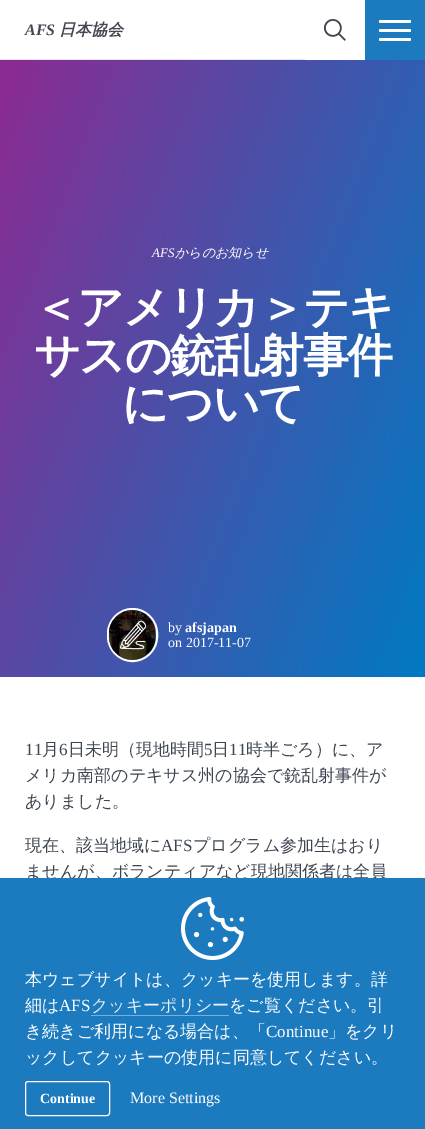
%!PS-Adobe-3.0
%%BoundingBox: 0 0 425 1129
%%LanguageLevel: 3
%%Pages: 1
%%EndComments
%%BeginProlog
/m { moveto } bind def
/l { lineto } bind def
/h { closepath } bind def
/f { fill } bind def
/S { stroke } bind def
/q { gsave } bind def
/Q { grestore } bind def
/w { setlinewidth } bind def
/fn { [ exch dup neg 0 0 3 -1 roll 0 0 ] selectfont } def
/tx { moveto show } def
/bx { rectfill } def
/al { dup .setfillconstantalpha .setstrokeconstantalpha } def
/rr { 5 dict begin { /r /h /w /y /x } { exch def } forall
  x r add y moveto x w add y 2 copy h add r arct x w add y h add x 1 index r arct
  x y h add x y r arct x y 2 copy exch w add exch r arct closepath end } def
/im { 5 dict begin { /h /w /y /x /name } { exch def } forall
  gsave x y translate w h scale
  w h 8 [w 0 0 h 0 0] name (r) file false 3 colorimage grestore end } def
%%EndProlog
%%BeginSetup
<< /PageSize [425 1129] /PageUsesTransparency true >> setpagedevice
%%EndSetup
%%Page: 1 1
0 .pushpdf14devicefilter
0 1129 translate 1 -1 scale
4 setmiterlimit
1 setgray
0 0 425 1129 bx
/LiberationSerif-BoldItalic 16 fn
0.286 0.267 0.322 setrgbcolor
(AFS) 25 35 tx
/WenQuanYiZenHei-BoldItalic 16 fn
(日本協会) 59 35 tx
(image0.raw) 324 19 22 22 im
0.11 0.478 0.749 setrgbcolor
365 0 60 60 bx
1 setgray
379 29 32 3 1.5 rr f
379 20 32 3 1.5 rr f
379 38 32 3 1.5 rr f
0.902 setgray
0 59 305 1 bx
q 0 60 m 425 60 l 425 677 l 0 677 l h clip newpath
<< /ShadingType 2 /ColorSpace /DeviceRGB /Coords [-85 226 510 451] /Extend [true true] /Function << /FunctionType 3 /Domain [0 1] /Functions [<< /FunctionType 2 /Domain [0 1] /C0 [0.573 0.153 0.561] /C1 [0.208 0.361 0.69] /N 1 >> << /FunctionType 2 /Domain [0 1] /C0 [0.208 0.361 0.69] /C1 [0 0.478 0.761] /N 1 >>] /Bounds [0.62] /Encode [0 1 0 1] >> >> shfill Q
/LiberationSerif-Italic 13 fn
1 setgray
(AFS) 152 257 tx
/WenQuanYiZenHei-MediumItalic 13 fn
(からのお知らせ) 175 257 tx
/WenQuanYiZenHei-Bold 46 fn
33 323 m -1.75 0 (＜アメリカ＞テキ) ashow
34 371 m -1.75 0 (サスの銃乱射事件) ashow
122 419 m -1.75 0 (について) ashow
2 w
108 609 49 52 24.5 rr S
0.3 al
109 610 47 50 23.5 rr f
1 al
(image1.raw) 108 610 48 50 im
/LiberationSerif-Regular 14 fn
(by) 168 632 tx
/LiberationSerif-Bold 14 fn
(afsjapan) 185 632 tx
/LiberationSerif-Regular 14 fn
(on 2017-11-07) 168 647 tx
/LiberationSerif-Regular 17 fn
0.231 0.267 0.31 setrgbcolor
(11) 25 755 tx
/WenQuanYiZenHei-Medium 17 fn
(月) 42 755 tx
/LiberationSerif-Regular 17 fn
(6) 59 755 tx
/WenQuanYiZenHei-Medium 17 fn
(日未明（現地時間) 68 755 tx
/LiberationSerif-Regular 17 fn
(5) 204 755 tx
/WenQuanYiZenHei-Medium 17 fn
(日) 212 755 tx
/LiberationSerif-Regular 17 fn
(11) 229 755 tx
/WenQuanYiZenHei-Medium 17 fn
(時半ごろ）に、ア) 246 755 tx
(メリカ南部のテキサス州の協会で銃乱射事件が) 25 781 tx
(ありました。) 25 807 tx
(現在、該当地域に) 25 851 tx
/LiberationSerif-Regular 17 fn
(AFS) 161 851 tx
/WenQuanYiZenHei-Medium 17 fn
(プログラム参加生はおり) 193 851 tx
(ませんが、ボランティアなど現地関係者は全員) 25 877 tx
0.11 0.478 0.749 setrgbcolor
0 878 425 251 bx
(image2.raw) 181 897 63 63 im
1 setgray
(本ウェブサイトは、クッキーを使用します。詳) 25 985 tx
(細は) 25 1011 tx
/LiberationSerif-Regular 17 fn
(AFS) 59 1011 tx
/WenQuanYiZenHei-Medium 17 fn
0.91 0.949 0.976 setrgbcolor
(クッキーポリシー) 91 1011 tx
0.467 0.686 0.851 setrgbcolor
91 1015 138 1 bx
1 setgray
(をご覧ください。引) 229 1011 tx
(き続きご利用になる場合は、「) 25 1037 tx
/LiberationSerif-Regular 17 fn
(Continue) 266 1037 tx
/WenQuanYiZenHei-Medium 17 fn
(」をクリ) 328 1037 tx
(ックしてクッキーの使用に同意してください。) 25 1063 tx
1 w
25.5 1081.5 84 34 2.5 rr S
/LiberationSerif-Bold 14 fn
(Continue) 40 1103 tx
/LiberationSerif-Regular 16 fn
(More Settings) 130 1103 tx
.poppdf14devicefilter showpage
%%EOF
